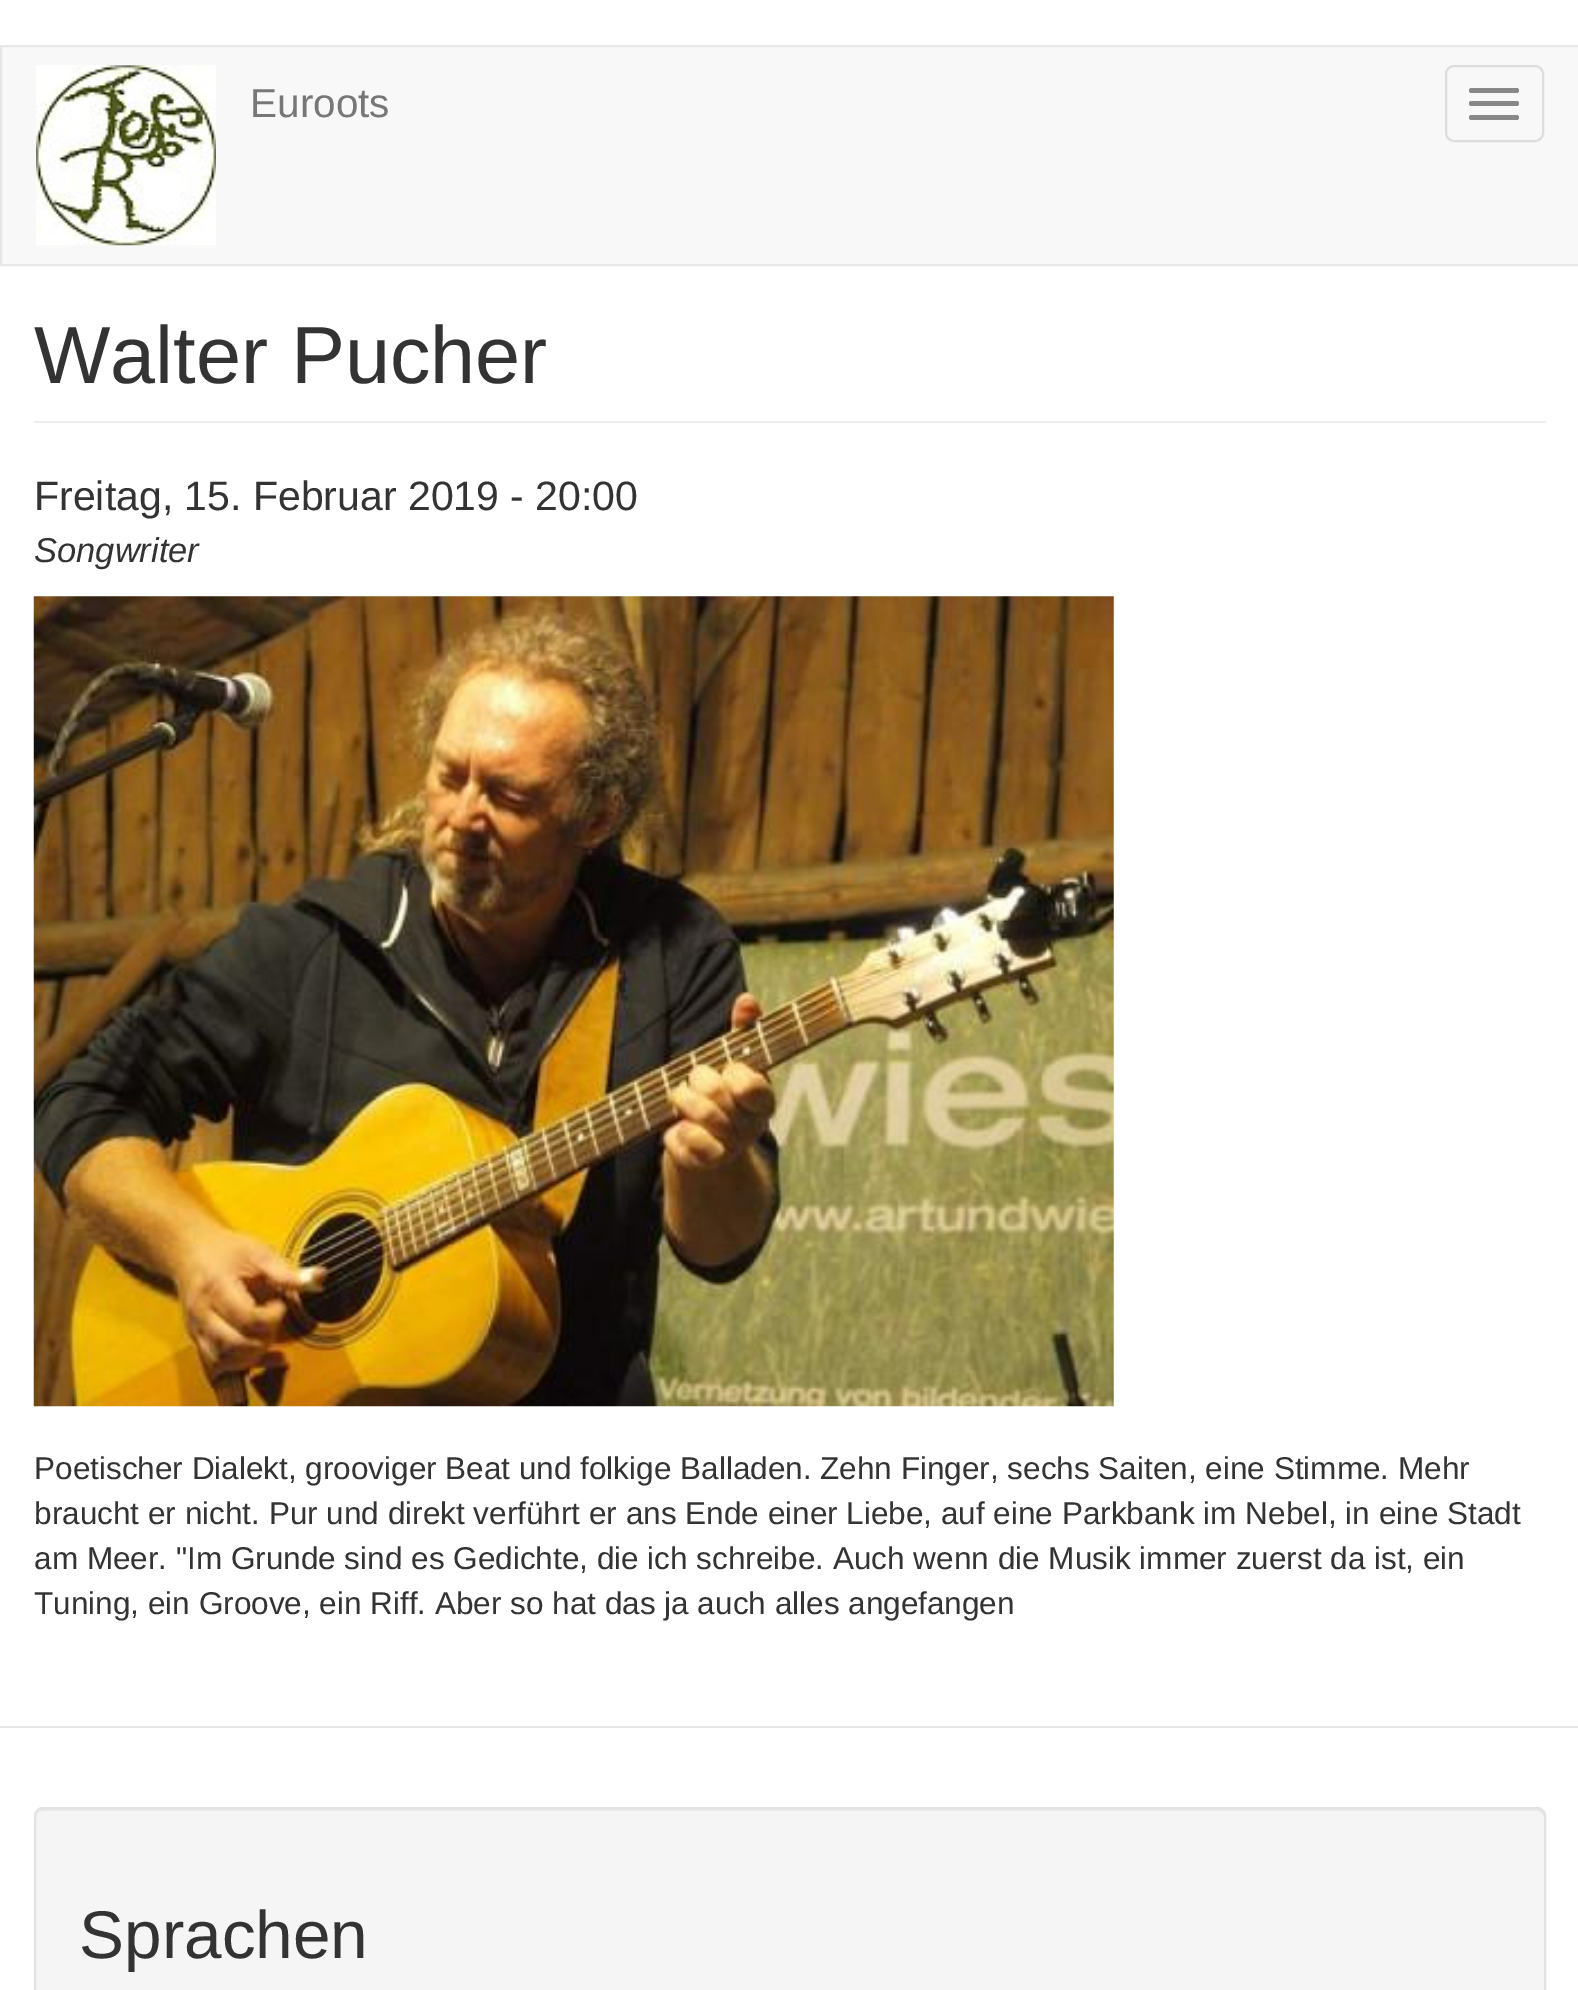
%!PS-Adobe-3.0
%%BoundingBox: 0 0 1578 1990
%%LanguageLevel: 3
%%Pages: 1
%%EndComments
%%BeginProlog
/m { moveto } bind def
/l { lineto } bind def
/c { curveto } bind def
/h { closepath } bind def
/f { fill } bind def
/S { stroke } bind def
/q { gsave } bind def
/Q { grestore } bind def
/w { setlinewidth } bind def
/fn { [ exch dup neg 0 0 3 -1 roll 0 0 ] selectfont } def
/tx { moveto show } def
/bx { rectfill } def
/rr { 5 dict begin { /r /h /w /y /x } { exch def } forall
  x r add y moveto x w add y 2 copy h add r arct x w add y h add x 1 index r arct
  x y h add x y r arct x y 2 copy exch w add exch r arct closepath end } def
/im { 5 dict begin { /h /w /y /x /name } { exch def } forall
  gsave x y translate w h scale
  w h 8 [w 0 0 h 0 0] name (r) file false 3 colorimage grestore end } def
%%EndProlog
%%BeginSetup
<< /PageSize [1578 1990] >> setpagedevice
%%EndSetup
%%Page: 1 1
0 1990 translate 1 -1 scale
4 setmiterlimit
1 setgray
0 0 1578 1990 bx
0.973 setgray
1 46 m 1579 46 l 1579 265 l 1 265 l h q f Q
0.906 setgray
2 w
S
(image0.raw) 36 65 180 181 im
/LiberationSans-Regular 40.5 fn
0.467 setgray
(Euroots) 250 117 tx
0.867 setgray
1446 66 97 75 8 rr S
0.533 setgray
1469 88 50 5 2.5 rr f
1469 101 50 5 2.5 rr f
1469 115 50 5 2.5 rr f
0.933 setgray
34 421 1512 2 bx
/LiberationSans-Regular 81 fn
0.2 setgray
(Walter Pucher) 34 383 tx
/LiberationSans-Regular 41 fn
(Freitag, 15. Februar 2019 - 20:00) 34 510 tx
/LiberationSans-Italic 34.5 fn
(Songwriter) 34 562 tx
(image1.raw) 33 596 1081 811 im
/LiberationSans-Regular 31.5 fn
(Poetischer Dialekt, grooviger Beat und folkige Balladen. Zehn Finger, sechs Saiten, eine Stimme. Mehr) 34 1479 tx
(braucht er nicht. Pur und direkt verführt er ans Ende einer Liebe, auf eine Parkbank im Nebel, in eine Stadt) 34 1524 tx
(am Meer. "Im Grunde sind es Gedichte, die ich schreibe. Auch wenn die Musik immer zuerst da ist, ein) 34 1569 tx
(Tuning, ein Groove, ein Riff. Aber so hat das ja auch alles angefangen) 34 1614 tx
0.898 setgray
0 1726 1578 2 bx
0.961 setgray
34 1807 1512 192 9 rr f
0.914 setgray
43 1811 m 1537 1811 l 1540 1811 1544 1814 1544 1818 c 1544 1814 1542 1809 1537 1809 c 43 1809 l 38 1809 36 1814 36 1818 c 36 1814 39 1811 43 1811 c h f
0.89 setgray
35 1808 1510 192 8 rr S
/LiberationSans-Regular 67.5 fn
0.2 setgray
(Sprachen) 79 1958 tx
showpage
%%EOF
